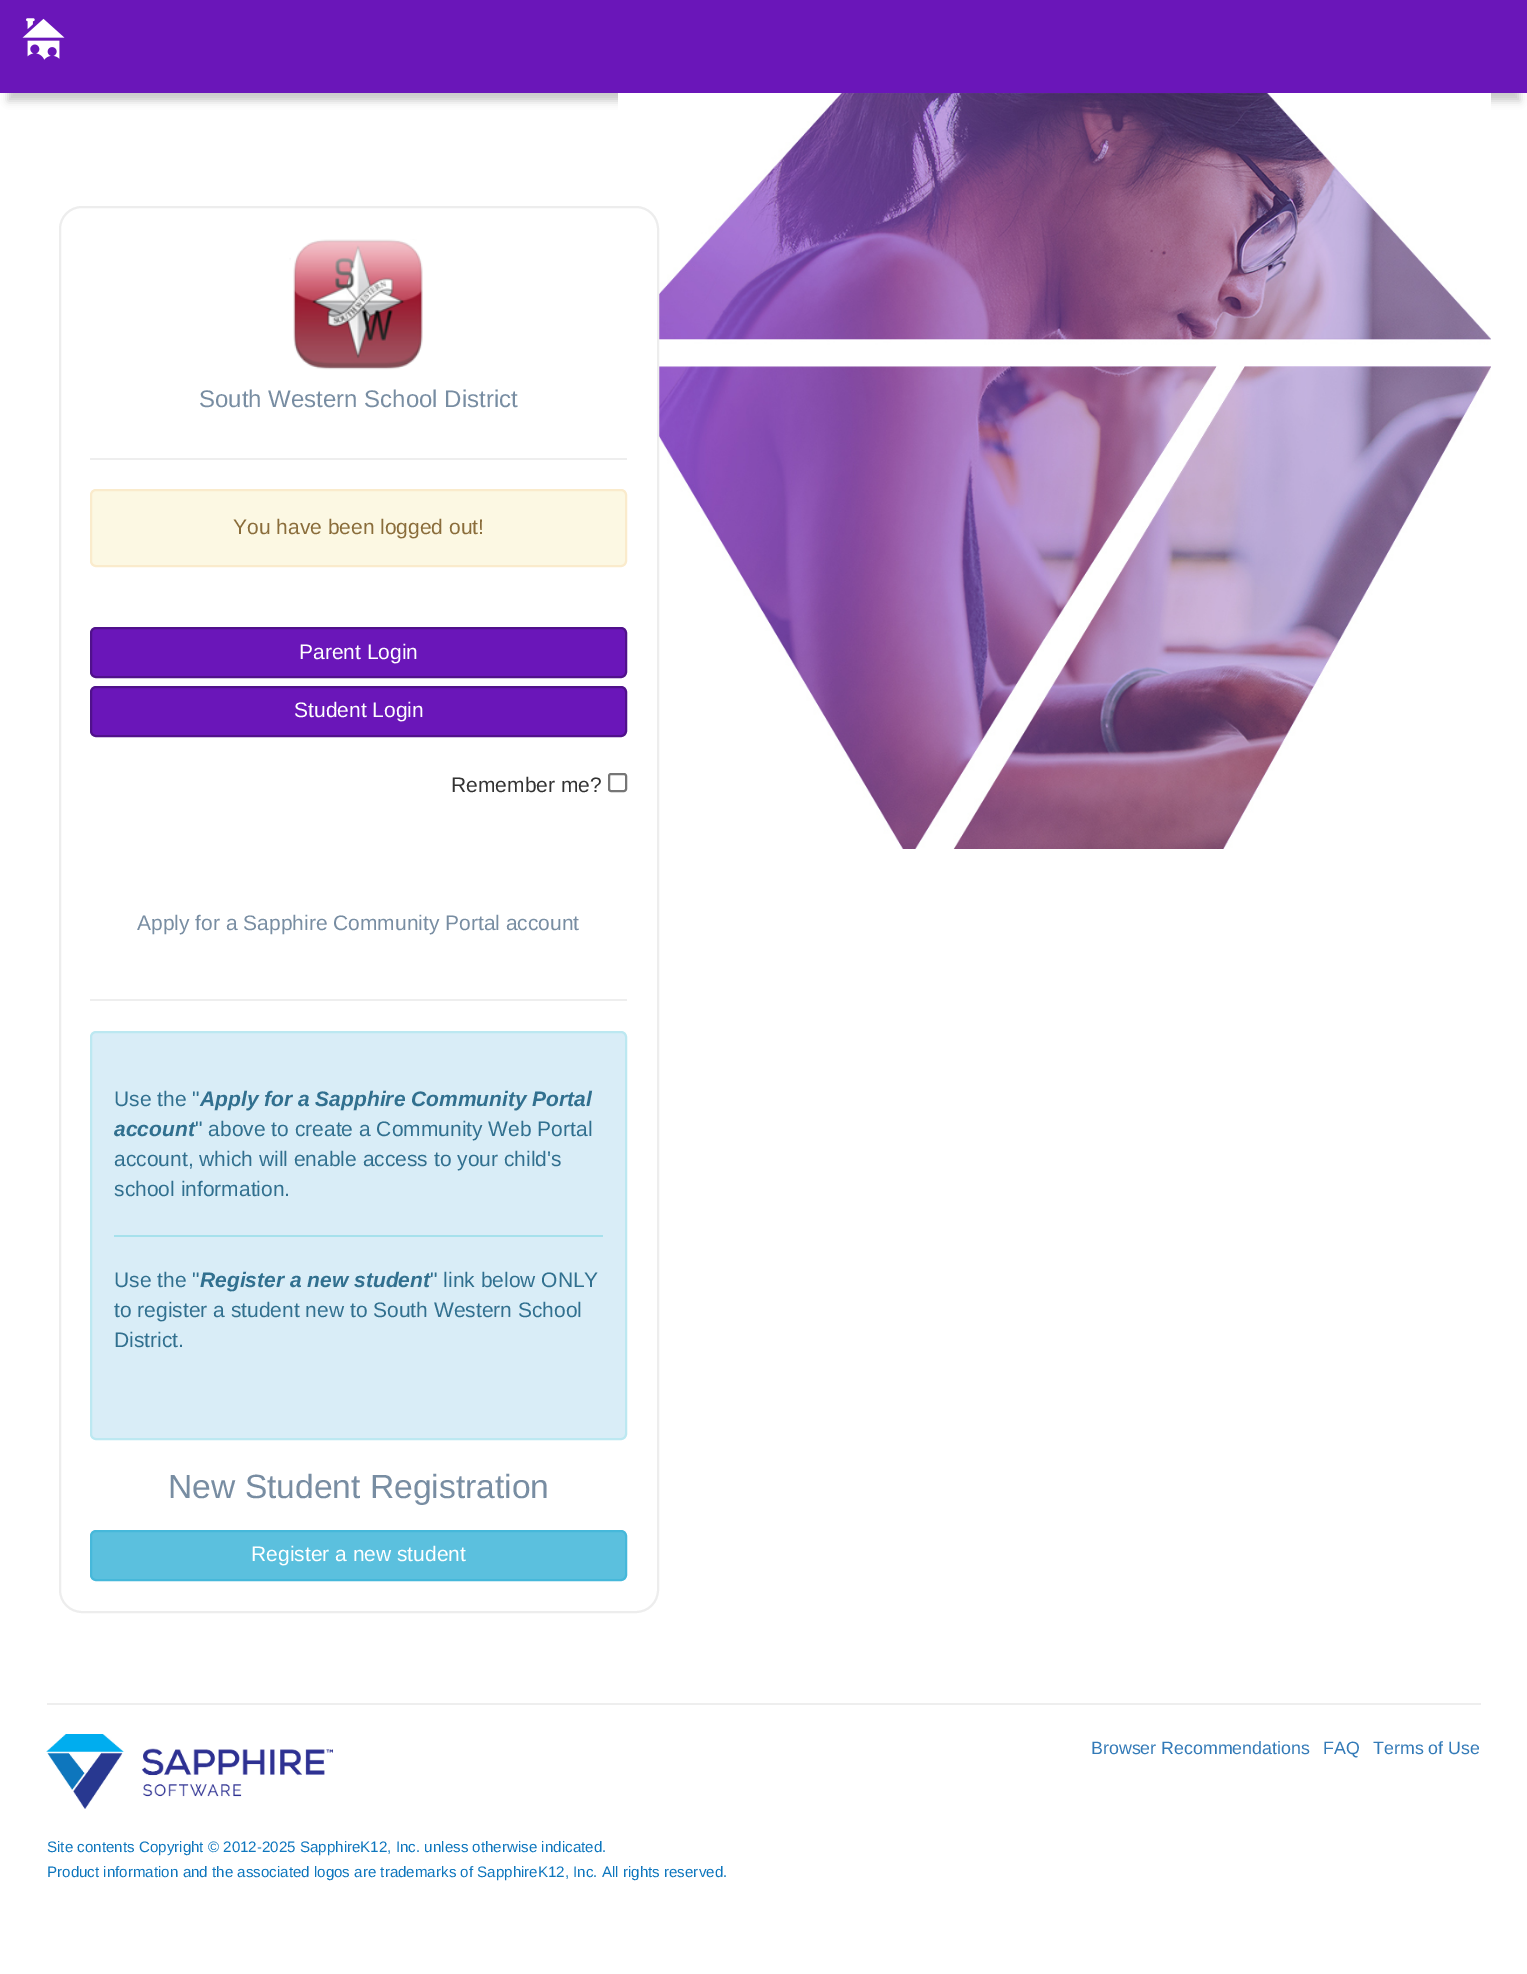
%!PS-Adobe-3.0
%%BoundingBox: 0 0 1527 1974
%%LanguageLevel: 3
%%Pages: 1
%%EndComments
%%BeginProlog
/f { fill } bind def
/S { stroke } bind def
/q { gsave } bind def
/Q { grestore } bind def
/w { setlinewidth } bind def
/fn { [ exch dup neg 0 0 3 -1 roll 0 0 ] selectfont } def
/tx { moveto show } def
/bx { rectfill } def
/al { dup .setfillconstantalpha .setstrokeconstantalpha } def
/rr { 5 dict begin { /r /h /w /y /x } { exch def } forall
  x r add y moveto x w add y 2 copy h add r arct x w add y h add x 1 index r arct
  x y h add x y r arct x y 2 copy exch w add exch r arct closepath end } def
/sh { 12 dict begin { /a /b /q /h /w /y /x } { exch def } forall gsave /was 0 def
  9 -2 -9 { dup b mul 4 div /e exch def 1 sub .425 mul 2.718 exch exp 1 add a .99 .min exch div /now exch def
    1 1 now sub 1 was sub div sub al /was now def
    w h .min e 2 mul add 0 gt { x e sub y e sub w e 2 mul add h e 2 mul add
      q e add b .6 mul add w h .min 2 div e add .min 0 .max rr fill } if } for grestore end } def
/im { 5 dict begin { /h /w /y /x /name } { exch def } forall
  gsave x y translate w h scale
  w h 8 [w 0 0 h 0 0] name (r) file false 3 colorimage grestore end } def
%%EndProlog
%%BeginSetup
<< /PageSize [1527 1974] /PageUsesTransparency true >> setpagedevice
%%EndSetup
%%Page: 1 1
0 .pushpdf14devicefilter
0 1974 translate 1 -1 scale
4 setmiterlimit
1 setgray
0 0 1527 1974 bx
0 setgray
8 23 1512 78 0 4 0.21 sh
0.416 0.086 0.725 setrgbcolor
0 0 1527 93 bx
(image0.raw) 22 18 43 42 im
(image1.raw) 618 93 873 756 im
1 setgray
60 207 598 1405 22 rr q f Q
0.929 setgray
2 w
S
(image2.raw) 289 239 134 131 im
/LiberationSans-Regular 24 fn
0.471 0.553 0.635 setrgbcolor
(South Western School District) 199 407 tx
0.933 setgray
90 458 537 2 bx
0.988 0.973 0.89 setrgbcolor
91 490 535 76 5 rr q f Q
0.98 0.922 0.8 setrgbcolor
S
/LiberationSans-Regular 21 fn
0.541 0.427 0.231 setrgbcolor
(You have been logged out!) 233 534 tx
0.416 0.086 0.725 setrgbcolor
91 628 535 49 5 rr q f Q
0.314 0.067 0.545 setrgbcolor
S
1 setgray
(Parent Login) 299 659 tx
0.416 0.086 0.725 setrgbcolor
91 687 535 49 5 rr q f Q
0.314 0.067 0.545 setrgbcolor
S
1 setgray
(Student Login) 294 717 tx
0.2 setgray
(Remember me?) 451 792 tx
0.463 setgray
609 774 17 17 2 rr S
0.471 0.553 0.635 setrgbcolor
(Apply for a Sapphire Community Portal account) 137 930 tx
0.933 setgray
90 999 537 2 bx
0.851 0.929 0.969 setrgbcolor
91 1032 535 407 5 rr q f Q
0.737 0.91 0.945 setrgbcolor
S
0.192 0.439 0.561 setrgbcolor
(Use the ") 114 1106 tx
/LiberationSans-BoldItalic 21 fn
(Apply for a Sapphire Community Portal) 200 1106 tx
(account) 114 1136 tx
/LiberationSans-Regular 21 fn
(" above to create a Community Web Portal) 195 1136 tx
(account, which will enable access to your child's) 114 1166 tx
(school information.) 114 1196 tx
0.651 0.882 0.925 setrgbcolor
114 1235 489 2 bx
0.192 0.439 0.561 setrgbcolor
(Use the ") 114 1287 tx
/LiberationSans-BoldItalic 21 fn
(Register a new student) 200 1287 tx
/LiberationSans-Regular 21 fn
(" link below ONLY) 430 1287 tx
(to register a student new to South Western School) 114 1317 tx
(District.) 114 1347 tx
/LiberationSans-Regular 33.6 fn
0.471 0.553 0.635 setrgbcolor
(New Student Registration) 168 1498 tx
0.357 0.753 0.871 setrgbcolor
91 1531 535 49 5 rr q f Q
0.275 0.722 0.855 setrgbcolor
S
/LiberationSans-Regular 21 fn
1 setgray
(Register a new student) 251 1561 tx
0.933 setgray
47 1703 1434 2 bx
(image3.raw) 46 1734 287 75 im
/LiberationSans-Regular 17.8 fn
0.2 0.478 0.718 setrgbcolor
(Browser Recommendations) 1091 1754 tx
(FAQ) 1323 1754 tx
(Terms of Use) 1373 1754 tx
/LiberationSans-Regular 15.15 fn
0.055 0.463 0.741 setrgbcolor
(Site contents Copyright © 2012-2025 SapphireK12, Inc. unless otherwise indicated.) 47 1852 tx
(Product information and the associated logos are trademarks of SapphireK12, Inc. All rights reserved.) 47 1877 tx
.poppdf14devicefilter showpage
%%EOF
